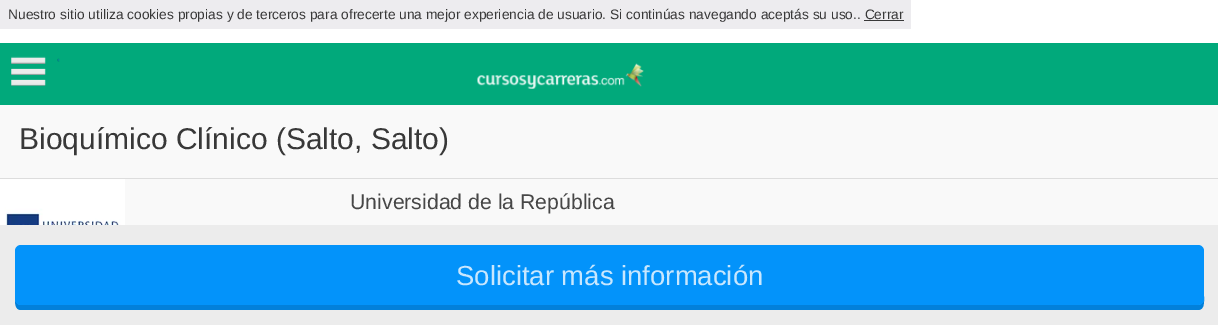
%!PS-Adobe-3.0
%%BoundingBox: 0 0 1218 325
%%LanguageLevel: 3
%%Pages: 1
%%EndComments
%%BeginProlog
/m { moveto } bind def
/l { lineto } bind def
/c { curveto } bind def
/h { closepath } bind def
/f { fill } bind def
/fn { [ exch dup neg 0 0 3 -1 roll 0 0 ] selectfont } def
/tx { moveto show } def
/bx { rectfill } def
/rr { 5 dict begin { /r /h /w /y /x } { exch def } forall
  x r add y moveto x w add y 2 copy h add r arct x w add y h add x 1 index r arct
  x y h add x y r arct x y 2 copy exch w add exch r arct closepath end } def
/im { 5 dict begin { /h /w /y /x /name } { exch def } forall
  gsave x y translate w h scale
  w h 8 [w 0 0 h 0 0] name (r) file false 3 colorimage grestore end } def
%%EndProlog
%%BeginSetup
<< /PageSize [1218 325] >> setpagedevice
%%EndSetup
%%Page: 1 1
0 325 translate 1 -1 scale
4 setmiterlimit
1 setgray
0 0 1218 325 bx
0.929 0.925 0.937 setrgbcolor
0 0 911 29 bx
/LiberationSans-Regular 13.75 fn
0.22 setgray
(Nuestro sitio utiliza cookies propias y de terceros para ofrecerte una mejor experiencia de usuario. Si continúas navegando aceptás su uso.. Cerrar) 8 19 tx
0.224 setgray
864 20 40 1 bx
0.004 0.663 0.482 setrgbcolor
0 43 1218 62 bx
(image0.raw) 11 56 49 30 im
(image1.raw) 477 63 167 26 im
0.976 setgray
0 105 1218 120 bx
/LiberationSans-Regular 30 fn
0.22 setgray
(Bioquímico Clínico \(Salto, Salto\)) 19 149 tx
0.867 setgray
0 178 1218 1 bx
(image2.raw) 0 179 125 46 im
/LiberationSans-Regular 21.25 fn
0.278 setgray
(Universidad de la República) 350 209 tx
0.925 setgray
0 225 1218 100 bx
0.008 0.502 0.855 setrgbcolor
15 299 m 15 303 15 310 21 310 c 1198 310 l 1205 310 1204 301 1204 296 c 1204 254 l 1204 299 l 1204 302 1201 305 1198 305 c 21 305 l 18 305 15 302 15 299 c h f
0.012 0.576 0.98 setrgbcolor
15 245 1189 60 6 rr f
/LiberationSans-Regular 27.5 fn
0.784 0.906 0.996 setrgbcolor
(Solicitar más información) 456 285 tx
showpage
%%EOF
